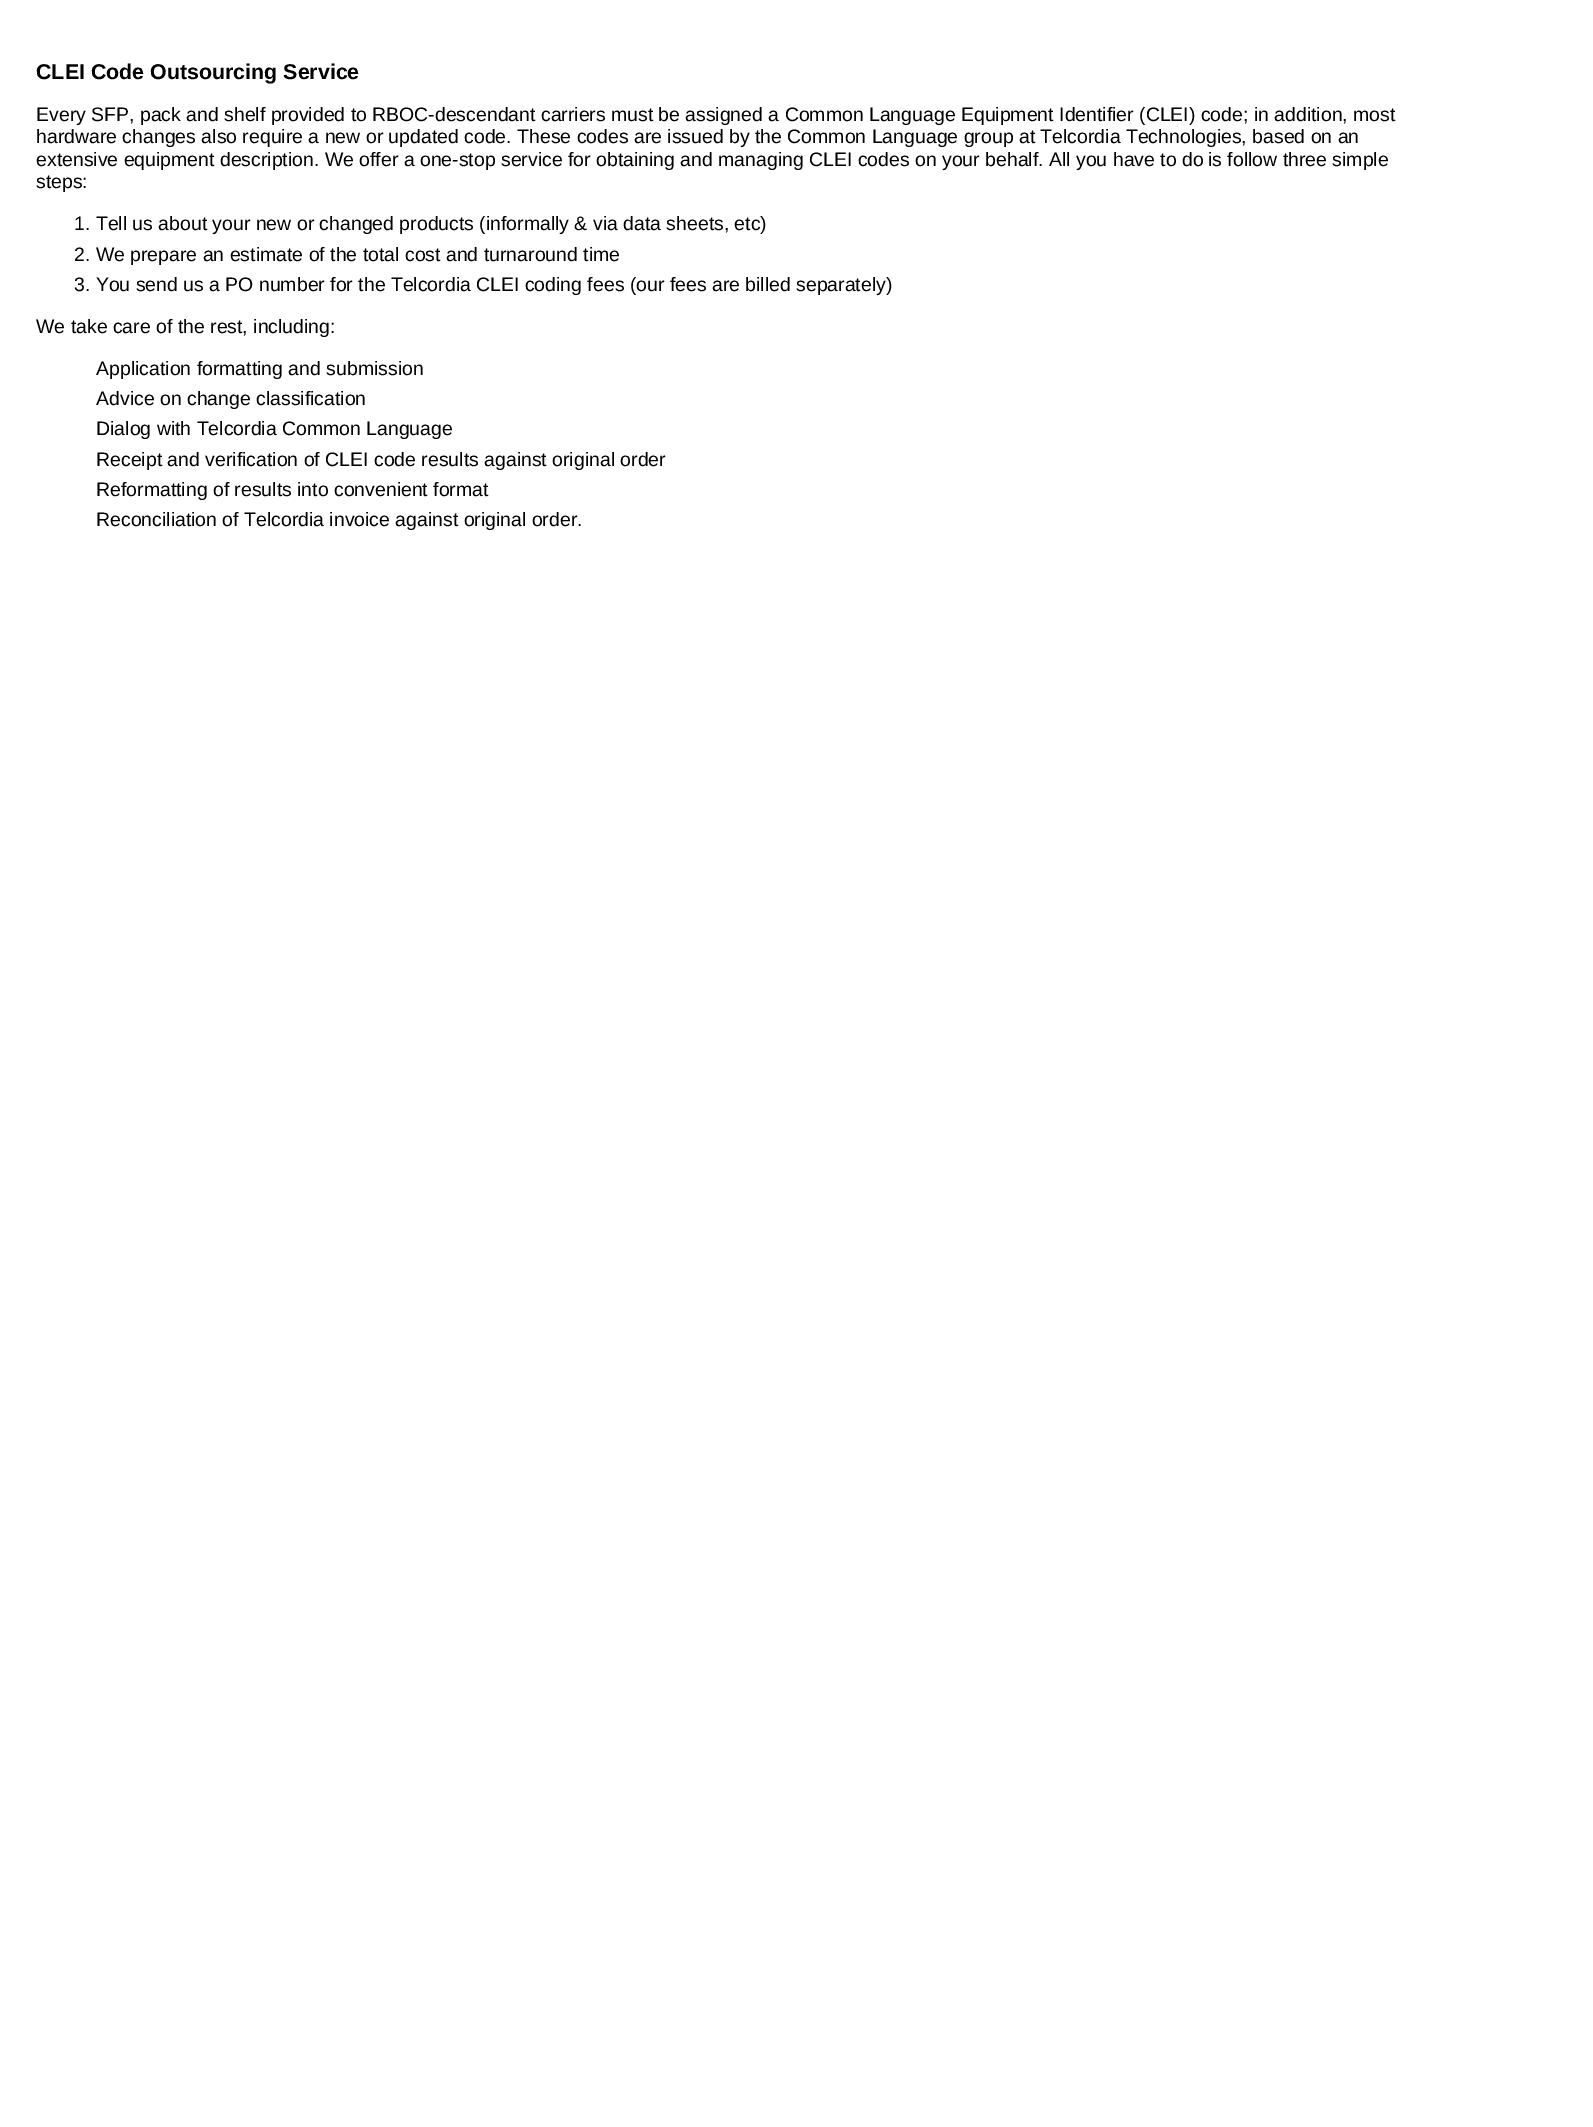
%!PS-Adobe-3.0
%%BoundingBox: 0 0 1593 2127
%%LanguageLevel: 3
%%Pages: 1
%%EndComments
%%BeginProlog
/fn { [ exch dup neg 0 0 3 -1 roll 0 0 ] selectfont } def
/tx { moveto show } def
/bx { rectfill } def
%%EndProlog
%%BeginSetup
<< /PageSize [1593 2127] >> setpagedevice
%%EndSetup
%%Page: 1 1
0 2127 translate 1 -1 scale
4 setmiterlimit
1 setgray
0 0 1593 2127 bx
/LiberationSans-Bold 21.4 fn
0 setgray
(CLEI Code Outsourcing Service) 36 79 tx
/LiberationSans-Regular 19.45 fn
(Every SFP, pack and shelf provided to RBOC-descendant carriers must) 36 121 tx
(be assigned a Common Language Equipment Identifier \(CLEI\) code; in addition,) 658 121 tx
(most) 1353 121 tx
(hardware changes also require a new or updated code. These codes are issued by the Common Language group at Telcordia Technologies, based on an) 36 143 tx
(extensive equipment description. We offer a one-stop service for obtaining and managing CLEI codes on your behalf. All you have to do) 36 166 tx
(is follow three simple) 1208 166 tx
(steps:) 36 188 tx
(1. Tell us about your new or changed products \(informally & via data sheets, etc\)) 74 230 tx
(2. We prepare an estimate of the total cost and turnaround time) 74 261 tx
(3. You send us a PO number for the Telcordia CLEI coding fees \(our fees are billed) 74 291 tx
(separately\)) 796 291 tx
(We take care of the rest, including:) 36 333 tx
(Application formatting and submission) 96 375 tx
(Advice on change classification) 96 405 tx
(Dialog with Telcordia Common Language) 96 435 tx
(Receipt and verification of CLEI code results against original order) 96 466 tx
(Reformatting of results into convenient format) 96 496 tx
(Reconciliation of Telcordia invoice against original order.) 96 526 tx
showpage
%%EOF
